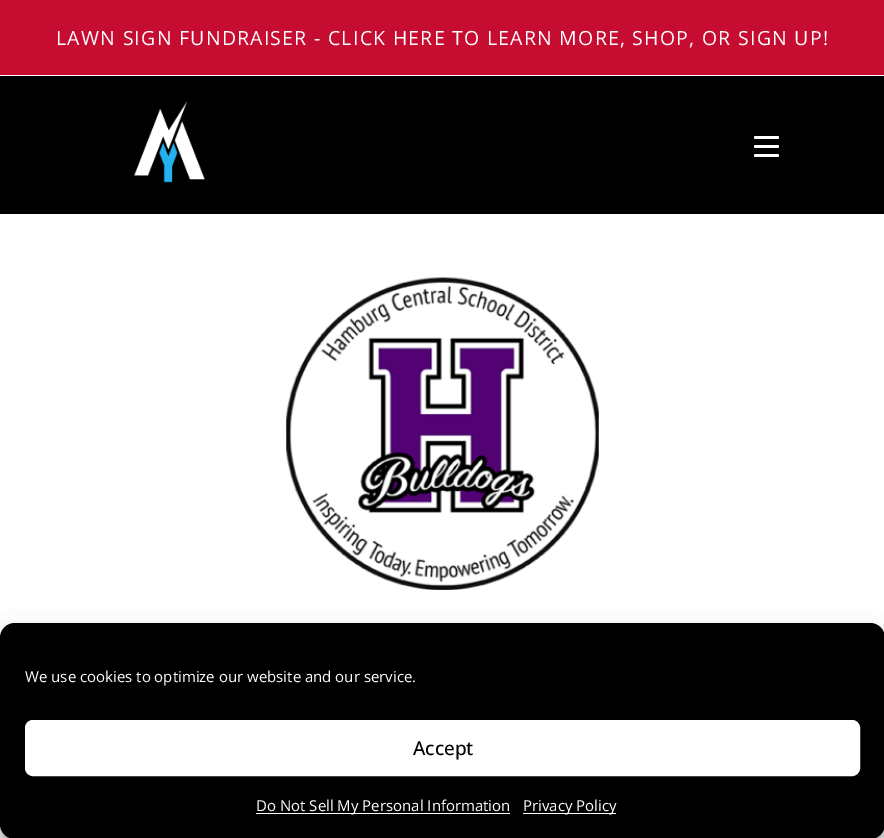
%!PS-Adobe-3.0
%%BoundingBox: 0 0 884 838
%%LanguageLevel: 3
%%Pages: 1
%%EndComments
%%BeginProlog
/m { moveto } bind def
/f { fill } bind def
/S { stroke } bind def
/q { gsave } bind def
/Q { grestore } bind def
/fn { [ exch dup neg 0 0 3 -1 roll 0 0 ] selectfont } def
/tx { moveto show } def
/bx { rectfill } def
/al { dup .setfillconstantalpha .setstrokeconstantalpha } def
/rr { 5 dict begin { /r /h /w /y /x } { exch def } forall
  x r add y moveto x w add y 2 copy h add r arct x w add y h add x 1 index r arct
  x y h add x y r arct x y 2 copy exch w add exch r arct closepath end } def
/sh { 12 dict begin { /a /b /q /h /w /y /x } { exch def } forall gsave /was 0 def
  9 -2 -9 { dup b mul 4 div /e exch def 1 sub .425 mul 2.718 exch exp 1 add a .99 .min exch div /now exch def
    1 1 now sub 1 was sub div sub al /was now def
    w h .min e 2 mul add 0 gt { x e sub y e sub w e 2 mul add h e 2 mul add
      q e add b .6 mul add w h .min 2 div e add .min 0 .max rr fill } if } for grestore end } def
/im { 5 dict begin { /h /w /y /x /name } { exch def } forall
  gsave x y translate w h scale
  w h 8 [w 0 0 h 0 0] name (r) file false 3 colorimage grestore end } def
%%EndProlog
%%BeginSetup
<< /PageSize [884 838] /PageUsesTransparency true >> setpagedevice
%%EndSetup
%%Page: 1 1
0 .pushpdf14devicefilter
0 838 translate 1 -1 scale
4 setmiterlimit
1 setgray
0 0 884 838 bx
0.776 0.047 0.192 setrgbcolor
0 0 884 75 bx
/OpenSans-Regular 19.5 fn
1 setgray
56 45 m 1.25 0 (LAWN SIGN FUNDRAISER - CLICK HERE TO LEARN MORE, SHOP, OR SIGN UP!) ashow
0 setgray
0 76 884 138 bx
(image0.raw) 133 101 72 82 im
1 setgray
754 136 25 3 1.5 rr f
754 145 25 3 1.5 rr f
754 154 25 3 1.5 rr f
(image1.raw) 286 277 313 313 im
0 setgray
0 630 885 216 15 4 0.23 sh
0 635 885 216 15 12.5 0.19 sh
0 623 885 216 15 rr f
/OpenSans-Regular 15 fn
1 setgray
(We use cookies to optimize our website and our service.) 25 682 tx
25.5 720.5 834 55 7.5 rr q f Q
S
/OpenSans-Medium 19 fn
0 setgray
(Accept) 413 755 tx
1 setgray
256 813 254 1 bx
/OpenSans-Regular 15 fn
(Do Not Sell My Personal Information) 256 811 tx
523 813 93 1 bx
(Privacy Policy) 523 811 tx
.poppdf14devicefilter showpage
%%EOF
